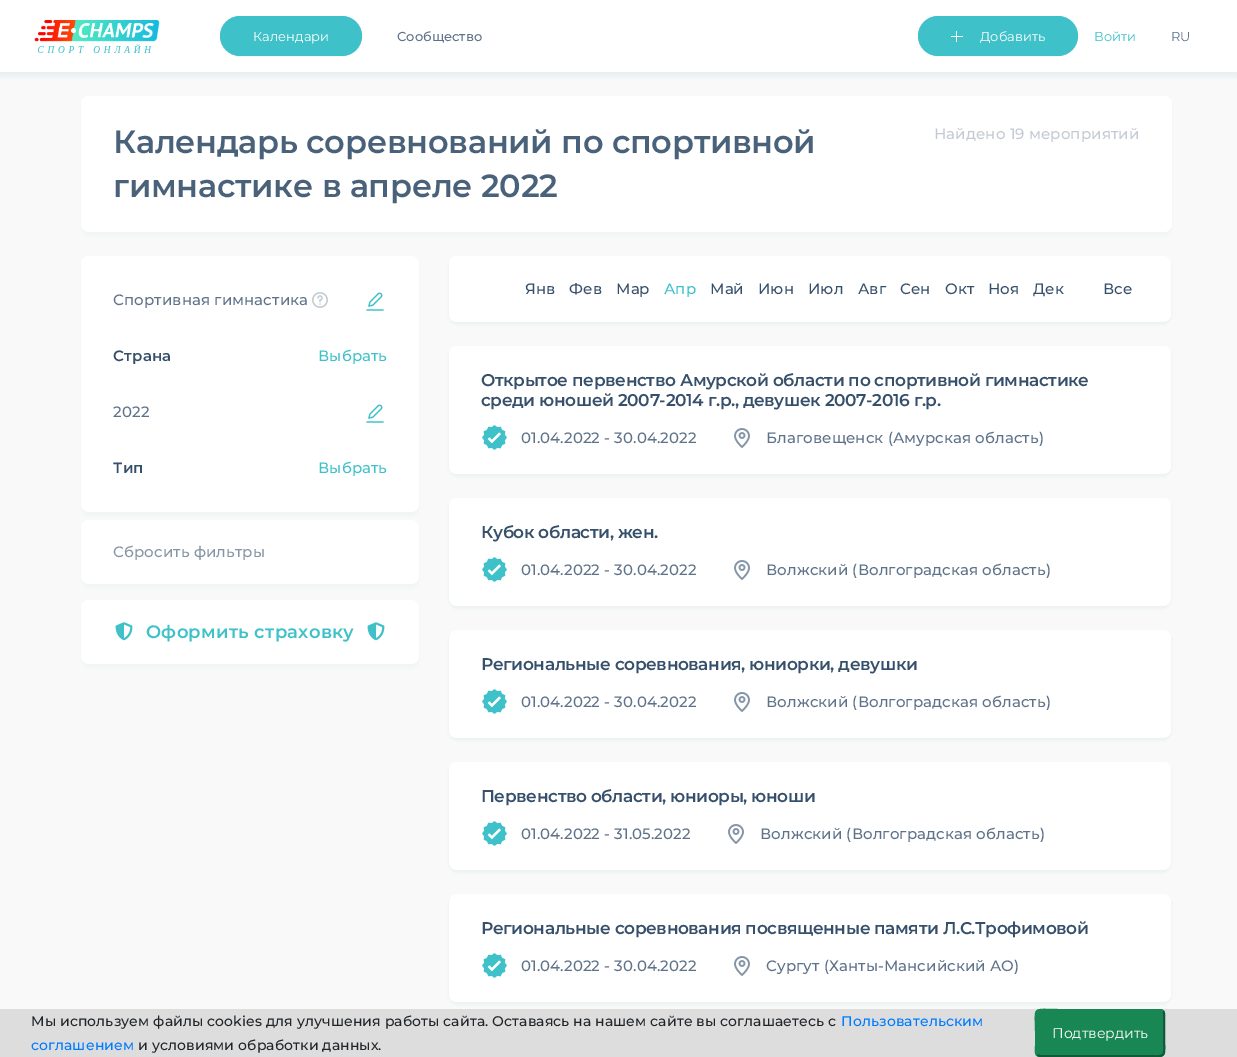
%!PS-Adobe-3.0
%%BoundingBox: 0 0 1237 1057
%%LanguageLevel: 3
%%Pages: 1
%%EndComments
%%BeginProlog
/m { moveto } bind def
/l { lineto } bind def
/c { curveto } bind def
/f { fill } bind def
/S { stroke } bind def
/w { setlinewidth } bind def
/fn { [ exch dup neg 0 0 3 -1 roll 0 0 ] selectfont } def
/tx { moveto show } def
/bx { rectfill } def
/al { dup .setfillconstantalpha .setstrokeconstantalpha } def
/rr { 5 dict begin { /r /h /w /y /x } { exch def } forall
  x r add y moveto x w add y 2 copy h add r arct x w add y h add x 1 index r arct
  x y h add x y r arct x y 2 copy exch w add exch r arct closepath end } def
/sh { 12 dict begin { /a /b /q /h /w /y /x } { exch def } forall gsave /was 0 def
  9 -2 -9 { dup b mul 4 div /e exch def 1 sub .425 mul 2.718 exch exp 1 add a .99 .min exch div /now exch def
    1 1 now sub 1 was sub div sub al /was now def
    w h .min e 2 mul add 0 gt { x e sub y e sub w e 2 mul add h e 2 mul add
      q e add b .6 mul add w h .min 2 div e add .min 0 .max rr fill } if } for grestore end } def
/im { 5 dict begin { /h /w /y /x /name } { exch def } forall
  gsave x y translate w h scale
  w h 8 [w 0 0 h 0 0] name (r) file false 3 colorimage grestore end } def
%%EndProlog
%%BeginSetup
<< /PageSize [1237 1057] /PageUsesTransparency true >> setpagedevice
%%EndSetup
%%Page: 1 1
0 .pushpdf14devicefilter
0 1057 translate 1 -1 scale
4 setmiterlimit
0.98 0.976 0.976 setrgbcolor
0 0 1237 1057 bx
0.271 0.557 0.616 setrgbcolor
-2 1 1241 76 0 2.5 0.1 sh
1 setgray
0 0 1237 72 bx
(image0.raw) 34 20 126 33 im
0.247 0.757 0.788 setrgbcolor
220 16 142 40 20 rr f
0.3 al
220.5 16.5 141 39 19.5 rr S
/Montserrat-Regular 13 fn
1 al
1 setgray
253 41 m 0.1 0 (Календари) ashow
/Montserrat-Medium 13 fn
0.369 0.447 0.537 setrgbcolor
(Сообщество) 397 41 tx
0.247 0.757 0.788 setrgbcolor
918 16 160 40 20 rr f
0.3 al
918.5 16.5 159 39 19.5 rr S
1 al
1 setgray
956 31 1 11 0.5 rr f
/Montserrat-Regular 13 fn
980 41 m 0.1 0 (Добавить) ashow
951 36 12 1 0.5 rr f
0.247 0.757 0.788 setrgbcolor
(Войти) 1094 41 tx
0.369 0.447 0.537 setrgbcolor
(RU) 1171 41 tx
0.271 0.557 0.616 setrgbcolor
81 100 1091 136 8 2 0.06 sh
1 setgray
81 96 1091 136 8 rr f
/Montserrat-SemiBold 32 fn
0.29 0.38 0.478 setrgbcolor
113 153 m -0.3 0 (Календарь соревнований по спортивной) ashow
113 197 m -0.3 0 (гимнастике в апреле 2022) ashow
/Montserrat-Medium 15 fn
0.765 0.792 0.827 setrgbcolor
934 139 m 0.1 0 (Найдено 19 мероприятий) ashow
0.271 0.557 0.616 setrgbcolor
81 260 338 256 8 2 0.06 sh
1 setgray
81 256 338 256 8 rr f
0.369 0.447 0.537 setrgbcolor
113 305 m 0.1 0 (Спортивная гимнастика) ashow
(image1.raw) 312 292 16 16 im
(image2.raw) 366 292 18 19 im
/Montserrat-SemiBold 15 fn
0.212 0.31 0.42 setrgbcolor
113 361 m 0.25 0 (Страна) ashow
/Montserrat-Medium 15 fn
0.247 0.757 0.788 setrgbcolor
318 361 m 0.1 0 (Выбрать) ashow
0.369 0.447 0.537 setrgbcolor
113 417 m 0.1 0 (2022) ashow
(image2.raw) 366 404 18 19 im
/Montserrat-SemiBold 15 fn
0.212 0.31 0.42 setrgbcolor
113 473 m 0.25 0 (Тип) ashow
/Montserrat-Medium 15 fn
0.247 0.757 0.788 setrgbcolor
318 473 m 0.1 0 (Выбрать) ashow
0.271 0.557 0.616 setrgbcolor
81 524 338 64 8 2 0.06 sh
1 setgray
81 520 338 64 8 rr f
0.525 0.584 0.651 setrgbcolor
113 557 m 0.1 0 (Сбросить фильтры) ashow
0.271 0.557 0.616 setrgbcolor
81 604 338 64 8 2 0.06 sh
1 setgray
81 600 338 64 8 rr f
(image3.raw) 115 622 18 19 im
/Montserrat-SemiBold 18 fn
0.247 0.757 0.788 setrgbcolor
146 638 m 0.25 0 (Оформить страховку) ashow
(image3.raw) 367 622 18 19 im
0.271 0.557 0.616 setrgbcolor
449 258 722 66 8 2 0.1 sh
1 setgray
449 256 722 66 8 rr f
/Montserrat-Medium 15 fn
0.212 0.31 0.42 setrgbcolor
525 294 m 0.1 0 (Янв) ashow
569 294 m 0.1 0 (Фев) ashow
616 294 m 0.1 0 (Мар) ashow
0.247 0.757 0.788 setrgbcolor
664 294 m 0.1 0 (Апр) ashow
0.212 0.31 0.42 setrgbcolor
710 294 m 0.1 0 (Май) ashow
758 294 m 0.1 0 (Июн) ashow
808 294 m 0.1 0 (Июл) ashow
858 294 m 0.1 0 (Авг) ashow
900 294 m 0.1 0 (Сен) ashow
945 294 m 0.1 0 (Окт) ashow
988 294 m 0.1 0 (Ноя) ashow
1033 294 m 0.1 0 (Дек) ashow
1103 294 m 0.1 0 (Все) ashow
0.271 0.557 0.616 setrgbcolor
449 348 722 128 8 2 0.1 sh
1 setgray
449 346 722 128 8 rr f
/Montserrat-SemiBold 17 fn
0.212 0.31 0.42 setrgbcolor
481 386 m -0.4 0 (Открытое первенство Амурской области по спортивной гимнастике) ashow
481 406 m -0.4 0 (среди юношей 2007-2014 г.р., девушек 2007-2016 г.р.) ashow
(image4.raw) 482 425 25 25 im
/Montserrat-Medium 15 fn
0.369 0.447 0.537 setrgbcolor
521 443 m 0.1 0 (01.04.2022 - 30.04.2022) ashow
(image5.raw) 734 428 16 20 im
766 443 m 0.1 0 (Благовещенск \(Амурская область\)) ashow
0.271 0.557 0.616 setrgbcolor
449 500 722 108 8 2 0.1 sh
1 setgray
449 498 722 108 8 rr f
/Montserrat-SemiBold 17 fn
0.212 0.31 0.42 setrgbcolor
481 538 m -0.4 0 (Кубок области, жен.) ashow
(image4.raw) 482 557 25 25 im
/Montserrat-Medium 15 fn
0.369 0.447 0.537 setrgbcolor
521 575 m 0.1 0 (01.04.2022 - 30.04.2022) ashow
(image5.raw) 734 560 16 20 im
766 575 m 0.1 0 (Волжский \(Волгоградская область\)) ashow
0.271 0.557 0.616 setrgbcolor
449 632 722 108 8 2 0.1 sh
1 setgray
449 630 722 108 8 rr f
/Montserrat-SemiBold 17 fn
0.212 0.31 0.42 setrgbcolor
481 670 m -0.4 0 (Региональные соревнования, юниорки, девушки) ashow
(image4.raw) 482 689 25 25 im
/Montserrat-Medium 15 fn
0.369 0.447 0.537 setrgbcolor
521 707 m 0.1 0 (01.04.2022 - 30.04.2022) ashow
(image5.raw) 734 692 16 20 im
766 707 m 0.1 0 (Волжский \(Волгоградская область\)) ashow
0.271 0.557 0.616 setrgbcolor
449 764 722 108 8 2 0.1 sh
1 setgray
449 762 722 108 8 rr f
/Montserrat-SemiBold 17 fn
0.212 0.31 0.42 setrgbcolor
481 802 m -0.4 0 (Первенство области, юниоры, юноши) ashow
(image4.raw) 482 821 25 25 im
/Montserrat-Medium 15 fn
0.369 0.447 0.537 setrgbcolor
521 839 m 0.1 0 (01.04.2022 - 31.05.2022) ashow
(image5.raw) 728 824 16 20 im
760 839 m 0.1 0 (Волжский \(Волгоградская область\)) ashow
0.271 0.557 0.616 setrgbcolor
449 896 722 108 8 2 0.1 sh
1 setgray
449 894 722 108 8 rr f
/Montserrat-SemiBold 17 fn
0.212 0.31 0.42 setrgbcolor
481 934 m -0.4 0 (Региональные соревнования посвященные памяти Л.С.Трофимовой) ashow
(image4.raw) 482 953 25 25 im
/Montserrat-Medium 15 fn
0.369 0.447 0.537 setrgbcolor
521 971 m 0.1 0 (01.04.2022 - 30.04.2022) ashow
(image5.raw) 734 956 16 20 im
766 971 m 0.1 0 (Сургут \(Ханты-Мансийский АО\)) ashow
0.867 setgray
0 1009 1237 48 bx
/Montserrat-Medium 14 fn
0.129 0.145 0.161 setrgbcolor
31 1026 m 0.1 0 (Мы используем файлы cookies для улучшения работы сайта. Оставаясь на нашем сайте вы соглашаетесь с) ashow
0 0.482 1 setrgbcolor
841 1026 m 0.1 0 (Пользовательским) ashow
31 1050 m 0.1 0 (соглашением) ashow
0.129 0.145 0.161 setrgbcolor
138 1050 m 0.1 0 (и условиями обработки данных.) ashow
0.098 0.529 0.329 setrgbcolor
1035 1009 130 48 5 rr f
0.067 0.353 0.22 setrgbcolor
2 w
1163 1011 m 1165 1013.5 1164 1018 1164 1020.5 c 1164 1033 l 1164 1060.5 1169 1056 1140 1056 c 1040 1056 l 1037 1055 l S
0.098 0.529 0.329 setrgbcolor
1037 1055 m 1035 1052.5 1036 1048 1036 1045.5 c 1036 1033 l 1036 1005.5 1031 1010 1060 1010 c 1160 1010 l 1163 1011 l S
/Montserrat-Regular 14 fn
1 setgray
(Подтвердить) 1052 1038 tx
.poppdf14devicefilter showpage
%%EOF
